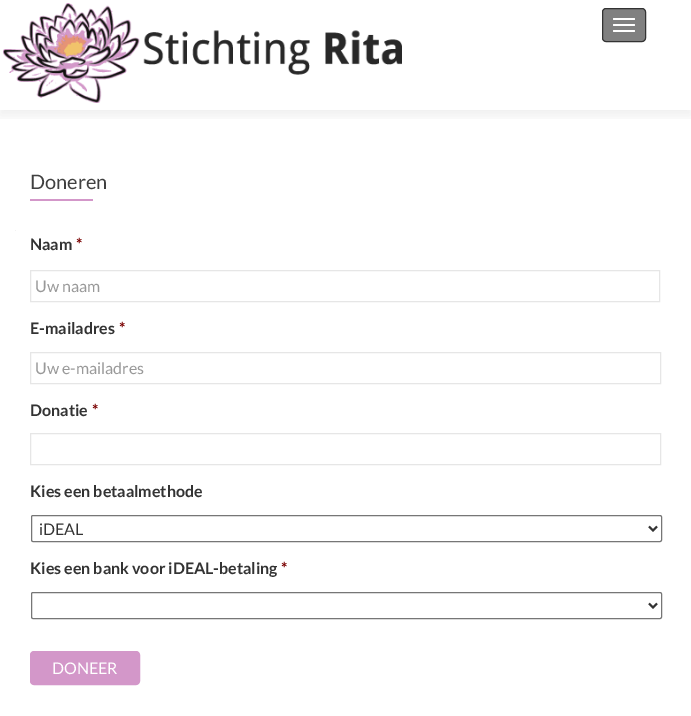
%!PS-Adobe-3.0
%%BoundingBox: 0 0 691 716
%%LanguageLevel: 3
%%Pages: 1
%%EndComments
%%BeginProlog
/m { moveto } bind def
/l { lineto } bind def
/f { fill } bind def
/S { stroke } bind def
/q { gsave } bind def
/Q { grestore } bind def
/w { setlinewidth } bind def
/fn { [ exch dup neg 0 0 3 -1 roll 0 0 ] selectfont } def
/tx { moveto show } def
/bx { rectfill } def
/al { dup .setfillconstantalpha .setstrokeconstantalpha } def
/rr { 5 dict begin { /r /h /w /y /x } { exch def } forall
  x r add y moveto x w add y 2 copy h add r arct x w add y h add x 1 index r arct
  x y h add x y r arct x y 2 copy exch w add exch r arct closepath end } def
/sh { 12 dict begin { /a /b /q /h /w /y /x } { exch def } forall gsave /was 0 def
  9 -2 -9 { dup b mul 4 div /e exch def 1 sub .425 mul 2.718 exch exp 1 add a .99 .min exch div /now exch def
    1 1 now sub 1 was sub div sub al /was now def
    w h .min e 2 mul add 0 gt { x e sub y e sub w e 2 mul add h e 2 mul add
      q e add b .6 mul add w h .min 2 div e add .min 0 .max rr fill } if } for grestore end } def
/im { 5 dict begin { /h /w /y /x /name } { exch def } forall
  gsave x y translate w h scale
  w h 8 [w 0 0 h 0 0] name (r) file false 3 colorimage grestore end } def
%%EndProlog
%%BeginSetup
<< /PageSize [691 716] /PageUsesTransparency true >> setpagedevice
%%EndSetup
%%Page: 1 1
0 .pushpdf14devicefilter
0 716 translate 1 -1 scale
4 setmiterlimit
1 setgray
0 0 691 716 bx
q
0 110 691 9 rectclip
0.196 setgray
0 5 691 110 0 5.5 0.08 sh
Q
(image0.raw) 3 3 399 100 im
0.502 setgray
602.5 8.5 43 33 3.5 rr q f Q
0.2 setgray
S
1 setgray
613 18 22 2 1 rr f
613 24 22 2 1 rr f
613 30 22 2 1 rr f
0.949 setgray
15 230 1 1 bx
/Lato-Regular 20 fn
0.251 setgray
(Doneren) 30 189 tx
0.827 0.592 0.788 setrgbcolor
30 199 63 2 bx
/Lato-Bold 16 fn
0.2 setgray
(Naam) 30 250 tx
0.475 0 0 setrgbcolor
(*) 76 250 tx
0.902 setgray
30.5 270.5 629 31 rectstroke
/Lato-Regular 16 fn
0.6 setgray
(Uw naam) 35 292 tx
/Lato-Bold 16 fn
0.2 setgray
(E-mailadres) 30 334 tx
0.475 0 0 setrgbcolor
(*) 119 334 tx
0.902 setgray
30.5 352.5 630 31 rectstroke
/Lato-Regular 16 fn
0.6 setgray
(Uw e-mailadres) 35 374 tx
/Lato-Bold 16 fn
0.2 setgray
(Donatie) 30 416 tx
0.475 0 0 setrgbcolor
(*) 92 416 tx
0.902 setgray
30.5 433.5 630 31 rectstroke
0.2 setgray
(Kies een betaalmethode) 30 497 tx
0.463 setgray
31.5 515.5 630 26 1.5 rr S
0.2 setgray
2 w
649 526.5 m 653 530.5 l 657 526.5 l S
/Lato-Regular 16 fn
(iDEAL) 39 535 tx
/Lato-Bold 16 fn
(Kies een bank voor iDEAL-betaling) 30 574 tx
0.475 0 0 setrgbcolor
(*) 281 574 tx
0.463 setgray
1 w
31.5 592.5 630 26 1.5 rr S
0.2 setgray
2 w
649 603.5 m 653 607.5 l 657 603.5 l S
0.827 0.592 0.788 setrgbcolor
31 652 108 32 3 rr q f Q
S
/Lato-Regular 16 fn
1 setgray
(DONEER) 52 674 tx
.poppdf14devicefilter showpage
%%EOF
